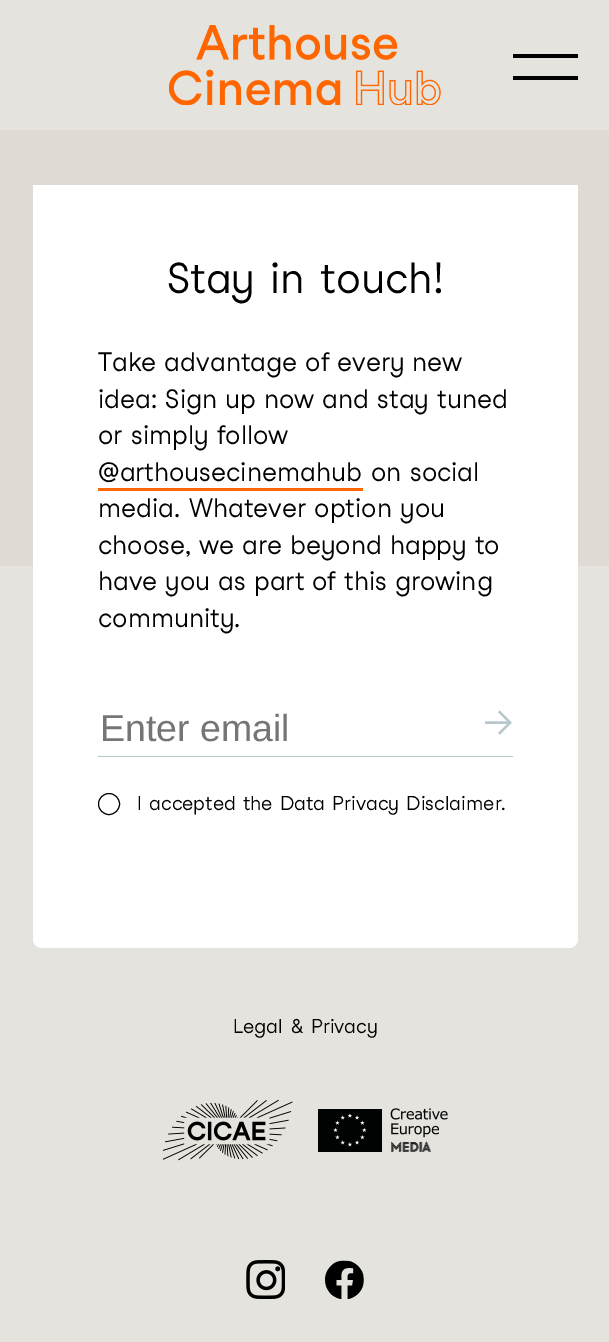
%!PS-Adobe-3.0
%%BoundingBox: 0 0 609 1342
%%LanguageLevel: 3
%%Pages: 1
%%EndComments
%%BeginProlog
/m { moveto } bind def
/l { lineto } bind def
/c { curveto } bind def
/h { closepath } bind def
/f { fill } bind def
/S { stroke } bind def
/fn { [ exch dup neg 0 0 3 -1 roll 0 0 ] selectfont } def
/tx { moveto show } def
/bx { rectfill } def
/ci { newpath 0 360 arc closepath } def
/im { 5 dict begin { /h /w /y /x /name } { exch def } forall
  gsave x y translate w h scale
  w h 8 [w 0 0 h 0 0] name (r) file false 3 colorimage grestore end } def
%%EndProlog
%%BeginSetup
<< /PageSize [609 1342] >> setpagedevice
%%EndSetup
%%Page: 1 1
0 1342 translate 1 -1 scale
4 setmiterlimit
0.875 0.859 0.831 setrgbcolor
0 0 609 1342 bx
0.898 0.89 0.867 setrgbcolor
0 0 609 130 bx
(image0.raw) 169 25 272 80 im
0 setgray
513 54 65 4 bx
513 76 65 4 bx
0.898 0.89 0.867 setrgbcolor
0 566 609 776 bx
1 setgray
33 185 m 578 185 l 578 939 l 578 944 574 948 569 948 c 42 948 l 37 948 33 944 33 939 c h f
/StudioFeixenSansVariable-Regular 42.25 fn
0 setgray
167 293 m 3 0 32 (Stay in touch!) widthshow
/StudioFeixenSansVariable-Regular 26 fn
98 371 m 0.5 0 32 (Take advantage of every new) widthshow
98 408 m 0.5 0 32 (idea: Sign up now and stay tuned) widthshow
98 444 m 1 0 32 (or simply follow) widthshow
(@arthousecinemahub) 98 481 tx
1 0.4 0 setrgbcolor
98 488 265 3 bx
0 setgray
371 481 m 1 0 32 (on social) widthshow
98 517 m 1 0 32 (media. Whatever option you) widthshow
98 554 m 0.5 0 32 (choose, we are beyond happy to) widthshow
98 590 m 0.5 0 32 (have you as part of this growing) widthshow
(community.) 98 627 tx
0.722 0.78 0.8 setrgbcolor
98 756 415 1 bx
/LiberationSans-Regular 37.5 fn
0.459 setgray
(Enter email) 100 741 tx
/StudioFeixenSansVariable-Regular 37.5 fn
0.722 0.78 0.8 setrgbcolor
(→) 485 736 tx
0 setgray
109 804 10.5 ci S
/StudioFeixenSansVariable-Regular 19.5 fn
137 810 m 1.5 0 32 (I accepted the Data Privacy Disclaimer.) widthshow
233 1033 m 2 0 32 (Legal & Privacy) widthshow
(image1.raw) 163 1099 130 62 im
(image2.raw) 318 1108 130 44 im
(image3.raw) 246 1260 39 39 im
(image4.raw) 325 1260 39 39 im
showpage
%%EOF
